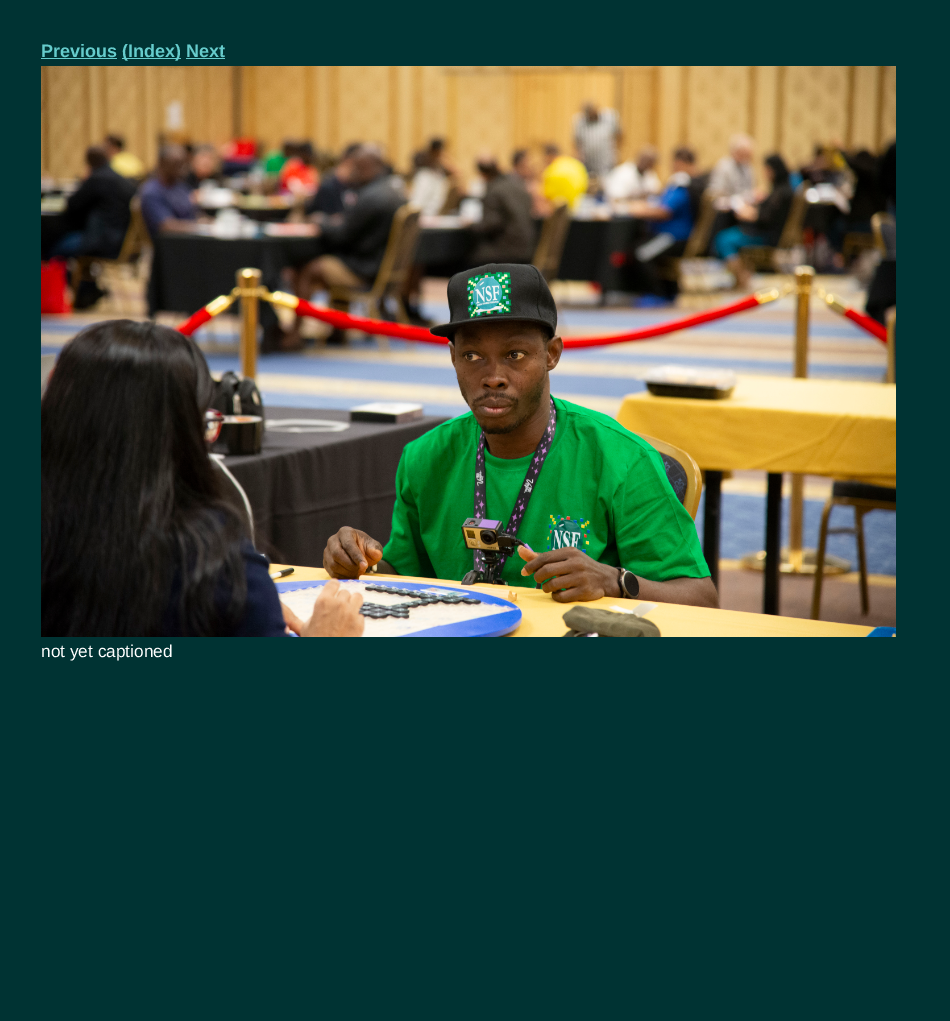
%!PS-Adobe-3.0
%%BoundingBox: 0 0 950 1021
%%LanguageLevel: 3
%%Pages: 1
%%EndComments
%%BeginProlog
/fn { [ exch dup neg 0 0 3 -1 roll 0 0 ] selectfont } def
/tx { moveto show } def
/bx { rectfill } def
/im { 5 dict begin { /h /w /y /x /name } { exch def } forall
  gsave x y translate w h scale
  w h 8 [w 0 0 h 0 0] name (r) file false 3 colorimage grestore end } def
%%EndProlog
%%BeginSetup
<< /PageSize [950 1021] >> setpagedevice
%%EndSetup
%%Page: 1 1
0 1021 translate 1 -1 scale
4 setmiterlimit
0 0.2 0.2 setrgbcolor
0 0 950 1021 bx
/LiberationSans-Bold 18 fn
0.4 0.8 0.8 setrgbcolor
(Previous) 41 57 tx
41 58 76 1 bx
122 58 59 1 bx
(\(Index\) Next) 122 57 tx
186 58 39 1 bx
(image0.raw) 41 66 855 571 im
/LiberationSans-Regular 17.25 fn
1 setgray
(not yet captioned) 41 657 tx
showpage
%%EOF
